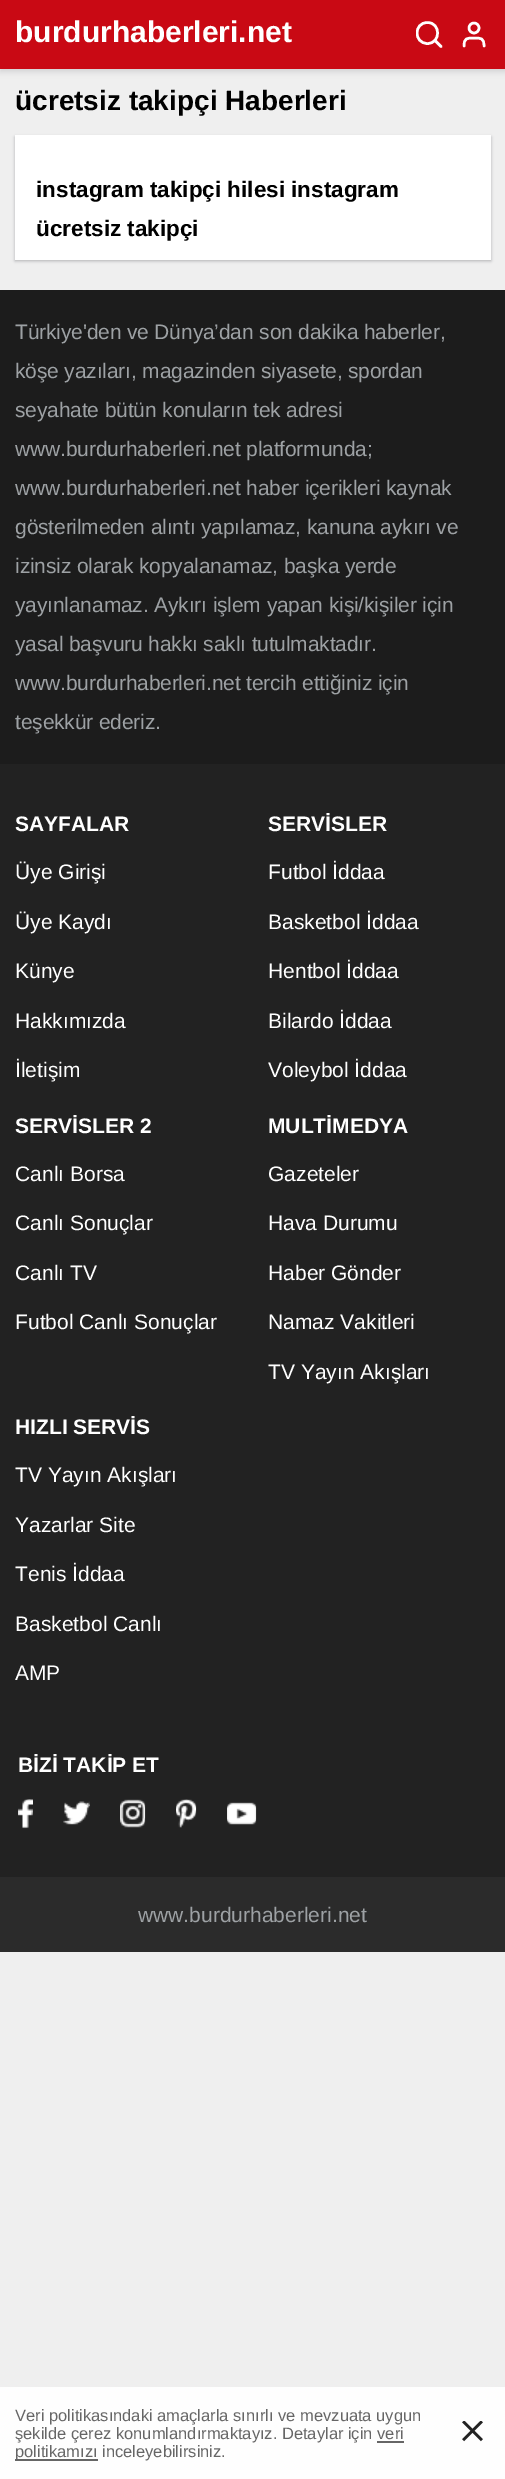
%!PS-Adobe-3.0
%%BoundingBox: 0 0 505 2479
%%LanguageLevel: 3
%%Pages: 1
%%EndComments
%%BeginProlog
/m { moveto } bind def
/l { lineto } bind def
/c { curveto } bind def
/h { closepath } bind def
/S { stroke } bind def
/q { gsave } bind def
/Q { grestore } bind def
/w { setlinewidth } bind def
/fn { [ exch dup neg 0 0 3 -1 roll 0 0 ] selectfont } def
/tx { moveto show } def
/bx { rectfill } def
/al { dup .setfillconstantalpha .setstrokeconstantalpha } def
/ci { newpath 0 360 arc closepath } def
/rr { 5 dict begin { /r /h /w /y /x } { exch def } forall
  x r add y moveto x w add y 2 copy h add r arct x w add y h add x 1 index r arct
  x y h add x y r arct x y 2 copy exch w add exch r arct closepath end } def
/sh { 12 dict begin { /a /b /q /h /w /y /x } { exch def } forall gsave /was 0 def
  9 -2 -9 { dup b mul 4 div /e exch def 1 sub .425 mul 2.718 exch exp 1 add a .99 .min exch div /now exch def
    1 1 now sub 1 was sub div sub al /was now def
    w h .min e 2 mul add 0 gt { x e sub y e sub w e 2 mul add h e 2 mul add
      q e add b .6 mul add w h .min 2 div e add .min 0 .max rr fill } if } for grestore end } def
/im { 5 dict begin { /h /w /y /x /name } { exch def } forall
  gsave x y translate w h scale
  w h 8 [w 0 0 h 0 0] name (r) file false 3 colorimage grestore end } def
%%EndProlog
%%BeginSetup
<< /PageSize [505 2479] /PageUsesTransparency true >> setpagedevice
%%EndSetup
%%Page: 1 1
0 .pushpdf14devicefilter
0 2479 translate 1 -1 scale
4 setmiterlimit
0.937 setgray
0 0 505 2479 bx
0.067 0.082 0.098 setrgbcolor
0 3 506 69 0 3 0.12 sh
0.788 0.035 0.078 setrgbcolor
0 0 505 69 bx
/LiberationSans-Bold 30 fn
1 setgray
(burdurhaberleri.net) 15 42 tx
q
416 21 27 27 rectclip
2.5 w
1 setlinecap
1 setlinejoin
427.5 43.5 m 441 43.5 441 22.5 427.5 22.5 c 413.5 22.5 413.5 43.5 427.5 43.5 c h S
Q
2.5 w
1 setlinecap
1 setlinejoin
435 40.5 m 441 46.5 l 484 46 m 484 38 481 38 474 38 c 467 38 464 38 464 46 c S
0 setlinecap
0 setlinejoin
474 28 5 ci S
/LiberationSans-Bold 28 fn
0 setgray
(ücretsiz takipçi Haberleri) 15 110 tx
0.067 0.082 0.098 setrgbcolor
15 137 476 124 0 1.5 0.27 sh
1 setgray
15 135 476 125 bx
/LiberationSans-Bold 22.5 fn
0 setgray
(instagram takipçi hilesi instagram) 36 197 tx
(ücretsiz takipçi) 36 236 tx
0.133 setgray
0 764 505 1113 bx
0.11 setgray
0 290 505 474 bx
/LiberationSans-Regular 21 fn
0.616 0.631 0.643 setrgbcolor
15 339 m -0.15 0 (Türkiye'den ve Dünya’dan son dakika haberler,) ashow
15 378 m -0.15 0 (köşe yazıları, magazinden siyasete, spordan) ashow
15 417 m -0.15 0 (seyahate bütün konuların tek adresi) ashow
15 456 m -0.15 0 (www.burdurhaberleri.net platformunda;) ashow
15 495 m -0.15 0 (www.burdurhaberleri.net haber içerikleri kaynak) ashow
15 534 m -0.15 0 (gösterilmeden alıntı yapılamaz, kanuna aykırı ve) ashow
15 573 m -0.15 0 (izinsiz olarak kopyalanamaz, başka yerde) ashow
15 612 m -0.15 0 (yayınlanamaz. Aykırı işlem yapan kişi/kişiler için) ashow
15 651 m -0.15 0 (yasal başvuru hakkı saklı tutulmaktadır.) ashow
15 690 m -0.15 0 (www.burdurhaberleri.net tercih ettiğiniz için) ashow
15 729 m -0.15 0 (teşekkür ederiz.) ashow
/LiberationSans-Bold 21 fn
1 setgray
(SAYFALAR) 15 831 tx
/LiberationSans-Regular 21 fn
(Üye Girişi) 15 879 tx
(Üye Kaydı) 15 929 tx
(Künye) 15 978 tx
(Hakkımızda) 15 1028 tx
(İletişim) 15 1077 tx
/LiberationSans-Bold 21 fn
(SERVİSLER) 268 831 tx
/LiberationSans-Regular 21 fn
(Futbol İddaa) 268 879 tx
(Basketbol İddaa) 268 929 tx
(Hentbol İddaa) 268 978 tx
(Bilardo İddaa) 268 1028 tx
(Voleybol İddaa) 268 1077 tx
/LiberationSans-Bold 21 fn
(SERVİSLER 2) 15 1133 tx
/LiberationSans-Regular 21 fn
(Canlı Borsa) 15 1181 tx
(Canlı Sonuçlar) 15 1230 tx
(Canlı TV) 15 1280 tx
(Futbol Canlı Sonuçlar) 15 1329 tx
/LiberationSans-Bold 21 fn
(MULTİMEDYA) 268 1133 tx
/LiberationSans-Regular 21 fn
(Gazeteler) 268 1181 tx
(Hava Durumu) 268 1230 tx
(Haber Gönder) 268 1280 tx
(Namaz Vakitleri) 268 1329 tx
(TV Yayın Akışları) 268 1379 tx
/LiberationSans-Bold 21 fn
(HIZLI SERVİS) 15 1434 tx
/LiberationSans-Regular 21 fn
(TV Yayın Akışları) 15 1482 tx
(Yazarlar Site) 15 1532 tx
(Tenis İddaa) 15 1581 tx
(Basketbol Canlı) 15 1631 tx
(AMP) 15 1680 tx
/LiberationSans-Bold 21 fn
(BİZİ TAKİP ET) 18 1772 tx
(image0.raw) 18 1799 15 30 im
(image1.raw) 63 1801 27 24 im
(image2.raw) 120 1799 26 29 im
(image3.raw) 176 1799 21 29 im
(image4.raw) 227 1802 30 23 im
0.169 setgray
0 1877 505 75 bx
/LiberationSans-Regular 21 fn
0.616 0.631 0.643 setrgbcolor
(www.burdurhaberleri.net) 138 1922 tx
0.996 setgray
0 2387 505 92 bx
/LiberationSans-Regular 16.5 fn
0.4 setgray
(Veri politikasındaki amaçlarla sınırlı ve mevzuata uygun) 15 2421 tx
(şekilde çerez konumlandırmaktayız. Detaylar için veri) 15 2439 tx
15 2459 83 2 bx
(politikamızı inceleyebilirsiniz.) 15 2457 tx
377 2441 27 2 bx
(image5.raw) 462 2421 21 21 im
.poppdf14devicefilter showpage
%%EOF
